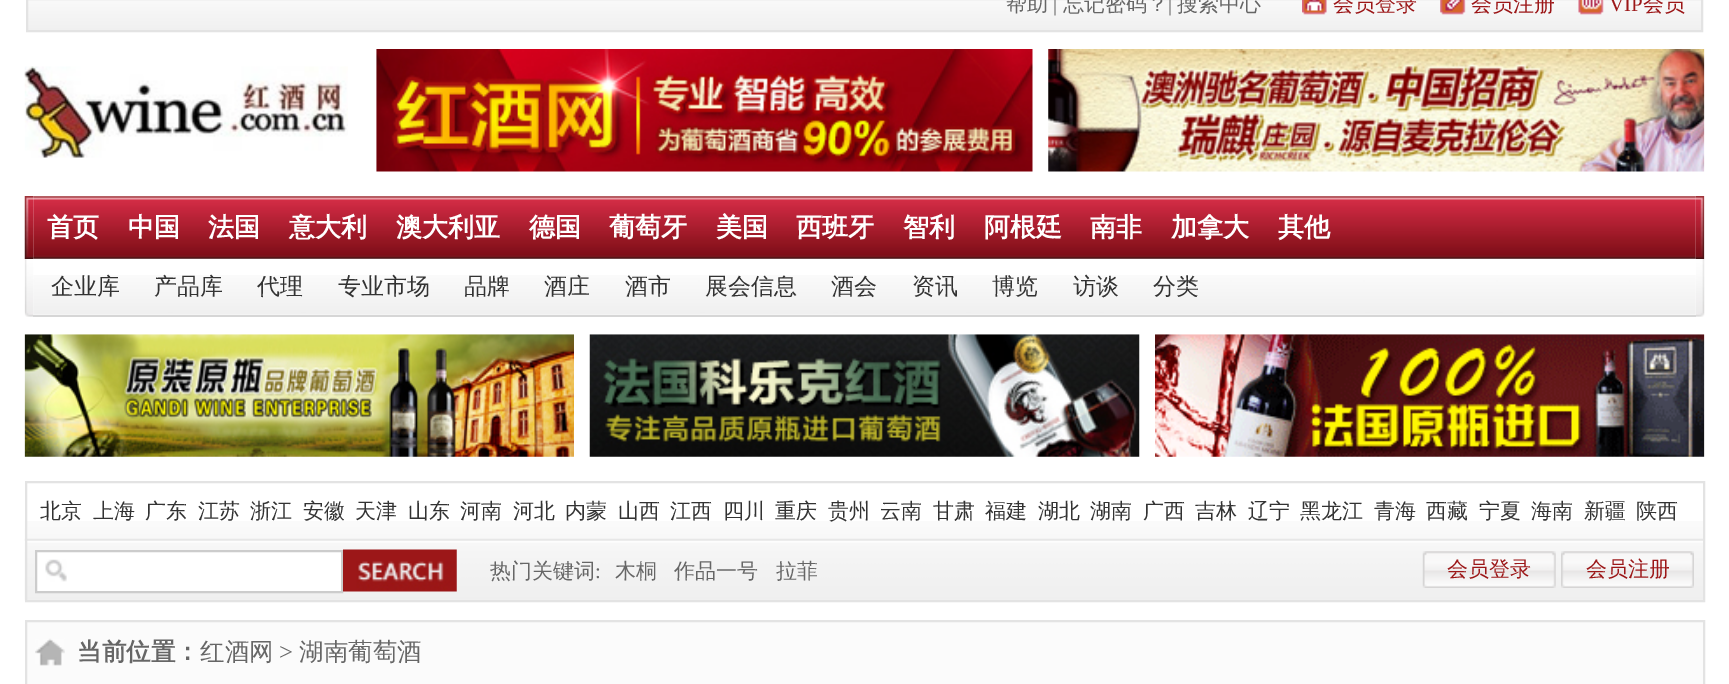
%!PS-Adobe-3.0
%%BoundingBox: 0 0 1729 684
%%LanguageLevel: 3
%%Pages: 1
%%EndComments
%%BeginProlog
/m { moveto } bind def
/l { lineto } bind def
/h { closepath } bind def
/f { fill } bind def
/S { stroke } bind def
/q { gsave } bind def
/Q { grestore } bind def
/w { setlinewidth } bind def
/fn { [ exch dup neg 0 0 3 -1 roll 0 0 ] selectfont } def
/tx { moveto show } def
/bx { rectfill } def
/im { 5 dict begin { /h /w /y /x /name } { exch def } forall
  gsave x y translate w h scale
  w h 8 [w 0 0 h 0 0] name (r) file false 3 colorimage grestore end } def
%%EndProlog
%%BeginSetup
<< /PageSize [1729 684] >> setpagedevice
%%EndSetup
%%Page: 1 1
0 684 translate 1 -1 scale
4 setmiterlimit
1 setgray
0 0 1729 684 bx
(image0.raw) 28 0 1673 30 im
0.89 setgray
2 w
27 -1 1675 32 rectstroke
/WenQuanYiZenHei-Medium 21 fn
0.4 setgray
(帮助) 1006 11 tx
/LiberationSerif-Regular 21 fn
(|) 1053 11 tx
/WenQuanYiZenHei-Medium 21 fn
(忘记密码？) 1063 11 tx
/LiberationSerif-Regular 21 fn
(|) 1168 11 tx
/WenQuanYiZenHei-Medium 21 fn
(搜索中心) 1177 11 tx
(image1.raw) 1302 0 25 15 im
0.612 0.09 0.094 setrgbcolor
(会员登录) 1333 11 tx
(image2.raw) 1440 0 26 15 im
(会员注册) 1471 11 tx
(image3.raw) 1578 0 26 15 im
/LiberationSerif-Regular 21 fn
(VIP) 1609 11 tx
/WenQuanYiZenHei-Medium 21 fn
(会员) 1643 11 tx
(image4.raw) 24 66 324 92 im
(image5.raw) 376 49 657 123 im
(image6.raw) 1048 49 657 123 im
(image7.raw) 24 196 10 63 im
(image8.raw) 33 196 1663 63 im
/WenQuanYiZenHei-Bold 26 fn
1 setgray
(首页) 47 236 tx
(中国) 128 236 tx
(法国) 208 236 tx
(意大利) 289 236 tx
(澳大利亚) 396 236 tx
(德国) 529 236 tx
(葡萄牙) 609 236 tx
(美国) 716 236 tx
(西班牙) 796 236 tx
(智利) 903 236 tx
(阿根廷) 984 236 tx
(南非) 1090 236 tx
(加拿大) 1171 236 tx
(其他) 1278 236 tx
(image9.raw) 1695 196 10 63 im
(image10.raw) 24 259 10 58 im
(image11.raw) 33 275 1663 40 im
0.839 setgray
33 315 1663 2 bx
/WenQuanYiZenHei-Medium 23 fn
0.2 setgray
(企业库) 51 294 tx
(产品库) 154 294 tx
(代理) 257 294 tx
(专业市场) 338 294 tx
(品牌) 464 294 tx
(酒庄) 544 294 tx
(酒市) 625 294 tx
(展会信息) 705 294 tx
(酒会) 831 294 tx
(资讯) 912 294 tx
(博览) 992 294 tx
(访谈) 1073 294 tx
(分类) 1153 294 tx
(image12.raw) 1696 259 9 58 im
(image13.raw) 24 334 550 123 im
(image14.raw) 589 334 551 123 im
(image15.raw) 1155 334 550 123 im
(image16.raw) 24 521 1679 80 im
0.89 setgray
26 482 1678 119 rectstroke
/WenQuanYiZenHei-Medium 21 fn
0.2 setgray
(北京) 40 518 tx
(上海) 93 518 tx
(广东) 145 518 tx
(江苏) 198 518 tx
(浙江) 250 518 tx
(安徽) 303 518 tx
(天津) 355 518 tx
(山东) 408 518 tx
(河南) 460 518 tx
(河北) 513 518 tx
(内蒙) 565 518 tx
(山西) 618 518 tx
(江西) 670 518 tx
(四川) 723 518 tx
(重庆) 775 518 tx
(贵州) 828 518 tx
(云南) 880 518 tx
(甘肃) 933 518 tx
(福建) 985 518 tx
(湖北) 1038 518 tx
(湖南) 1090 518 tx
(广西) 1143 518 tx
(吉林) 1195 518 tx
(辽宁) 1248 518 tx
(黑龙江) 1300 518 tx
(青海) 1374 518 tx
(西藏) 1426 518 tx
(宁夏) 1479 518 tx
(海南) 1531 518 tx
(新疆) 1584 518 tx
(陕西) 1636 518 tx
1 setgray
36 551 m 342 551 l 342 592 l 36 592 l h q f Q
0.8 setgray
S
(image17.raw) 343 549 114 43 im
(image18.raw) 45 559 22 23 im
0.4 setgray
(热门关键词) 490 578 tx
/LiberationSerif-Regular 21 fn
(:) 595 578 tx
/WenQuanYiZenHei-Medium 21 fn
(木桐) 615 578 tx
(作品一号) 674 578 tx
(拉菲) 776 578 tx
(image19.raw) 1422 551 134 37 im
0.612 0.09 0.094 setrgbcolor
(会员登录) 1447 576 tx
(image20.raw) 1561 551 133 37 im
(会员注册) 1586 576 tx
0.984 setgray
27 622 1676 62 bx
(image21.raw) 35 638 30 28 im
0.89 setgray
26 621 1678 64 rectstroke
/WenQuanYiZenHei-Bold 24.5 fn
0.4 setgray
(当前位置：) 77 660 tx
/WenQuanYiZenHei-Medium 24.5 fn
(红酒网) 200 660 tx
/LiberationSerif-Regular 24.5 fn
(>) 279 660 tx
/WenQuanYiZenHei-Medium 24.5 fn
(湖南葡萄酒) 299 660 tx
showpage
%%EOF
